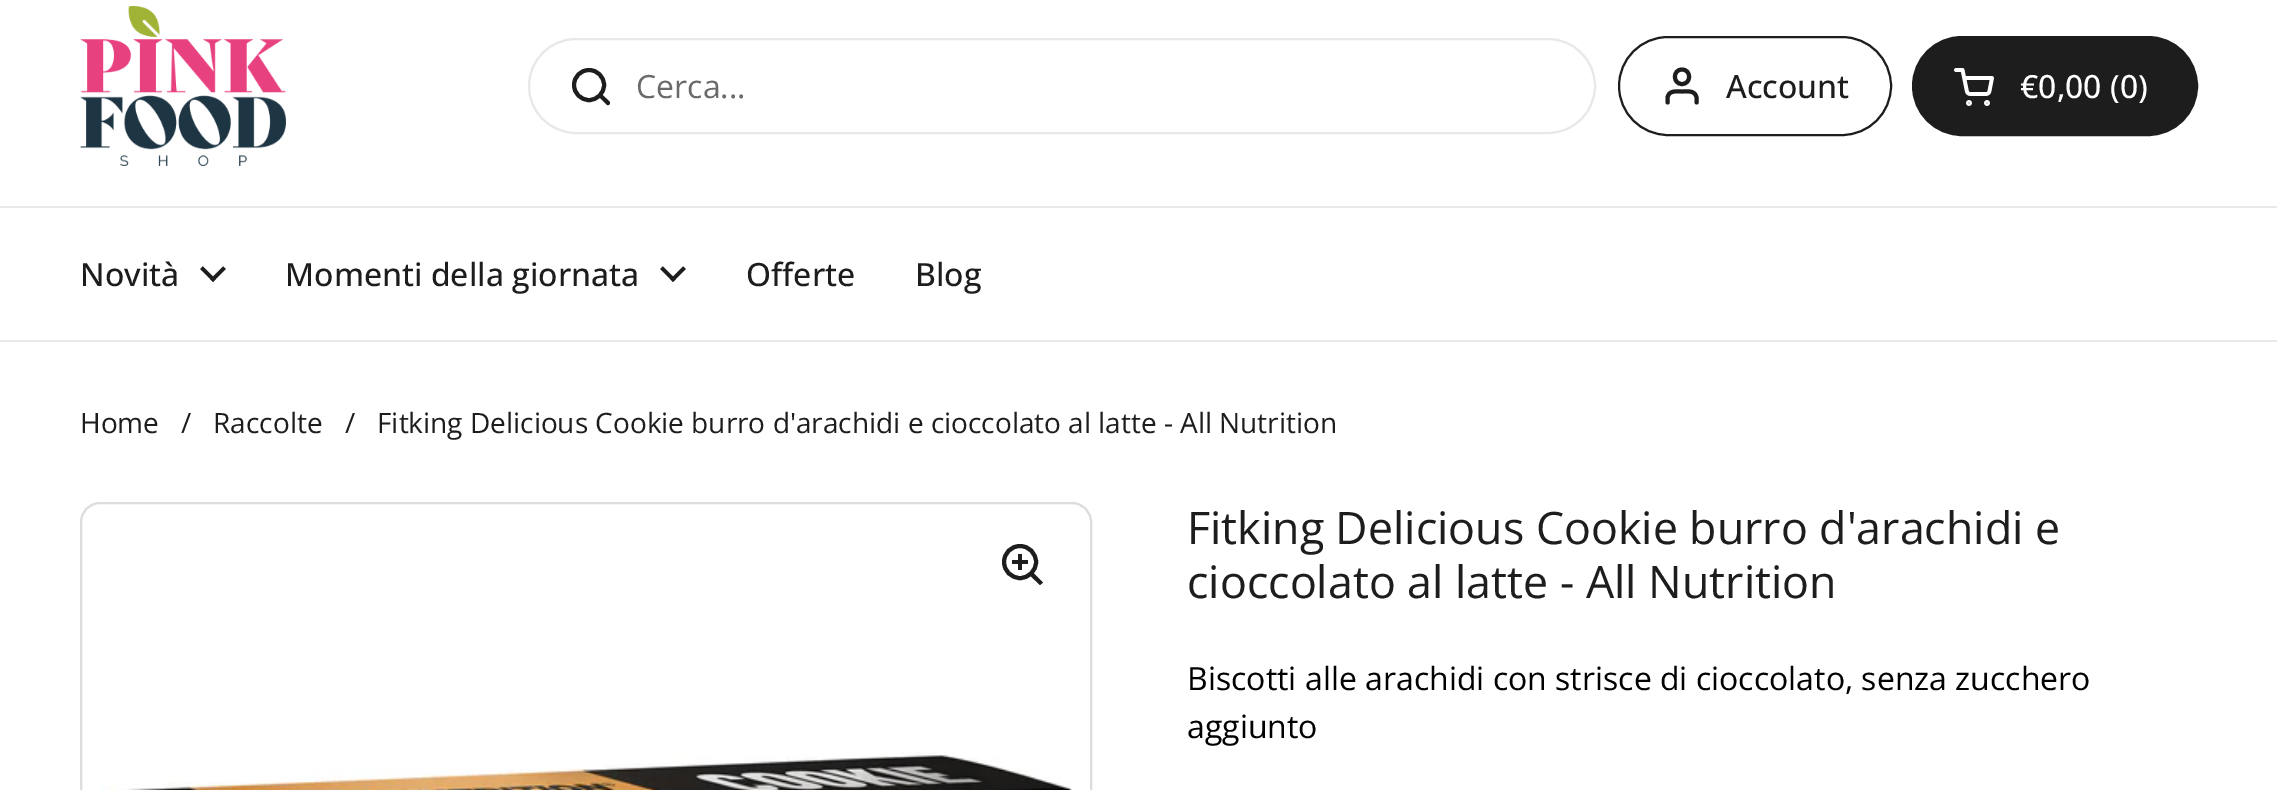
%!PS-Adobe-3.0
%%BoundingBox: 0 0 2277 790
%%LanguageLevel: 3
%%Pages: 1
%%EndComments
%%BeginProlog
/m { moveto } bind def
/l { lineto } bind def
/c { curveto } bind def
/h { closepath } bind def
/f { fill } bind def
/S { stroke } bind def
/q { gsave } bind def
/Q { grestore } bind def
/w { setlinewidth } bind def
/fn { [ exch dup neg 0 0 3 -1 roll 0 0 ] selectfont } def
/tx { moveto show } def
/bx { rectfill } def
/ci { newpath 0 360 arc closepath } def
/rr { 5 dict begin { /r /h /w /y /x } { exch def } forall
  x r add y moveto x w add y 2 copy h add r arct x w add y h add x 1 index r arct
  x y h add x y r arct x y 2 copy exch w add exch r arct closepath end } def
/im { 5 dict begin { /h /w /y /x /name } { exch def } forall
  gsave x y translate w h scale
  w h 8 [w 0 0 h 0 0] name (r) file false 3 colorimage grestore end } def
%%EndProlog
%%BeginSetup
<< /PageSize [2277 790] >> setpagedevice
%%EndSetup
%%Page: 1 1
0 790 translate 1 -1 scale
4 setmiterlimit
1 setgray
0 0 2277 790 bx
0.91 setgray
0 206 2277 2 bx
(image0.raw) 80 6 206 160 im
2 w
529 39 1066 94 47 rr S
0.114 setgray
4 w
589 85 15 ci S
602 94.5 m 601 93 l 598 96 l 599.5 97.5 l h 606.5 104.5 m 608.5 106.5 611 103.5 609.5 101.5 c h 599.5 97.5 m 606.5 104.5 l 609.5 101.5 l 602 94.5 l h f
/OpenSans-Regular 32 fn
0.416 setgray
(Cerca...) 636 98 tx
0.114 setgray
2 w
1619 37 272 98 49 rr S
4 w
1 setlinecap
1 setlinejoin
1696.5 102.5 m 1696.5 97.5 l 1695 90 1687.5 91.5 1682 91.5 c 1676.5 91.5 1669 90 1667.5 97.5 c 1667.5 102.5 l 1682 84 m 1691.5 84 1691.5 69.5 1682 69.5 c 1672.5 69.5 1672.5 84 1682 84 c h S
/OpenSans-Medium 32 fn
(Account) 1726 98 tx
1913 37 284 98 49 rr q f Q
2 w
0 setlinecap
0 setlinejoin
S
(image1.raw) 1954 68 40 38 im
1 setgray
(€0,00 \(0\)) 2020 98 tx
0.91 setgray
0 340 2277 2 bx
0.114 setgray
(Novità) 80 286 tx
(image2.raw) 200 266 26 16 im
(Momenti della giornata) 285 286 tx
(image2.raw) 660 266 26 16 im
(Offerte) 746 286 tx
(Blog) 915 286 tx
/OpenSans-Regular 28 fn
(Home) 80 433 tx
(/) 181 433 tx
(Raccolte) 213 433 tx
(/) 345 433 tx
(Fitking Delicious Cookie burro d'arachidi e cioccolato al latte - All Nutrition) 377 433 tx
0.867 setgray
81 503 1010 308 19 rr S
0.114 setgray
4 w
1020 562 16 ci S
1018 554 4 16 bx
1012 560 16 4 bx
1030.5 576 m 1033.5 573 l 1043 582.5 l 1040 585 l h f
(image3.raw) 102 752 970 38 im
/OpenSans-Regular 44.75 fn
(Fitking Delicious Cookie burro d'arachidi e) 1187 544 tx
(cioccolato al latte - All Nutrition) 1187 598 tx
/OpenSans-Regular 32 fn
0 setgray
(Biscotti alle arachidi con strisce di cioccolato, senza zucchero) 1187 690 tx
(aggiunto) 1187 738 tx
showpage
%%EOF
